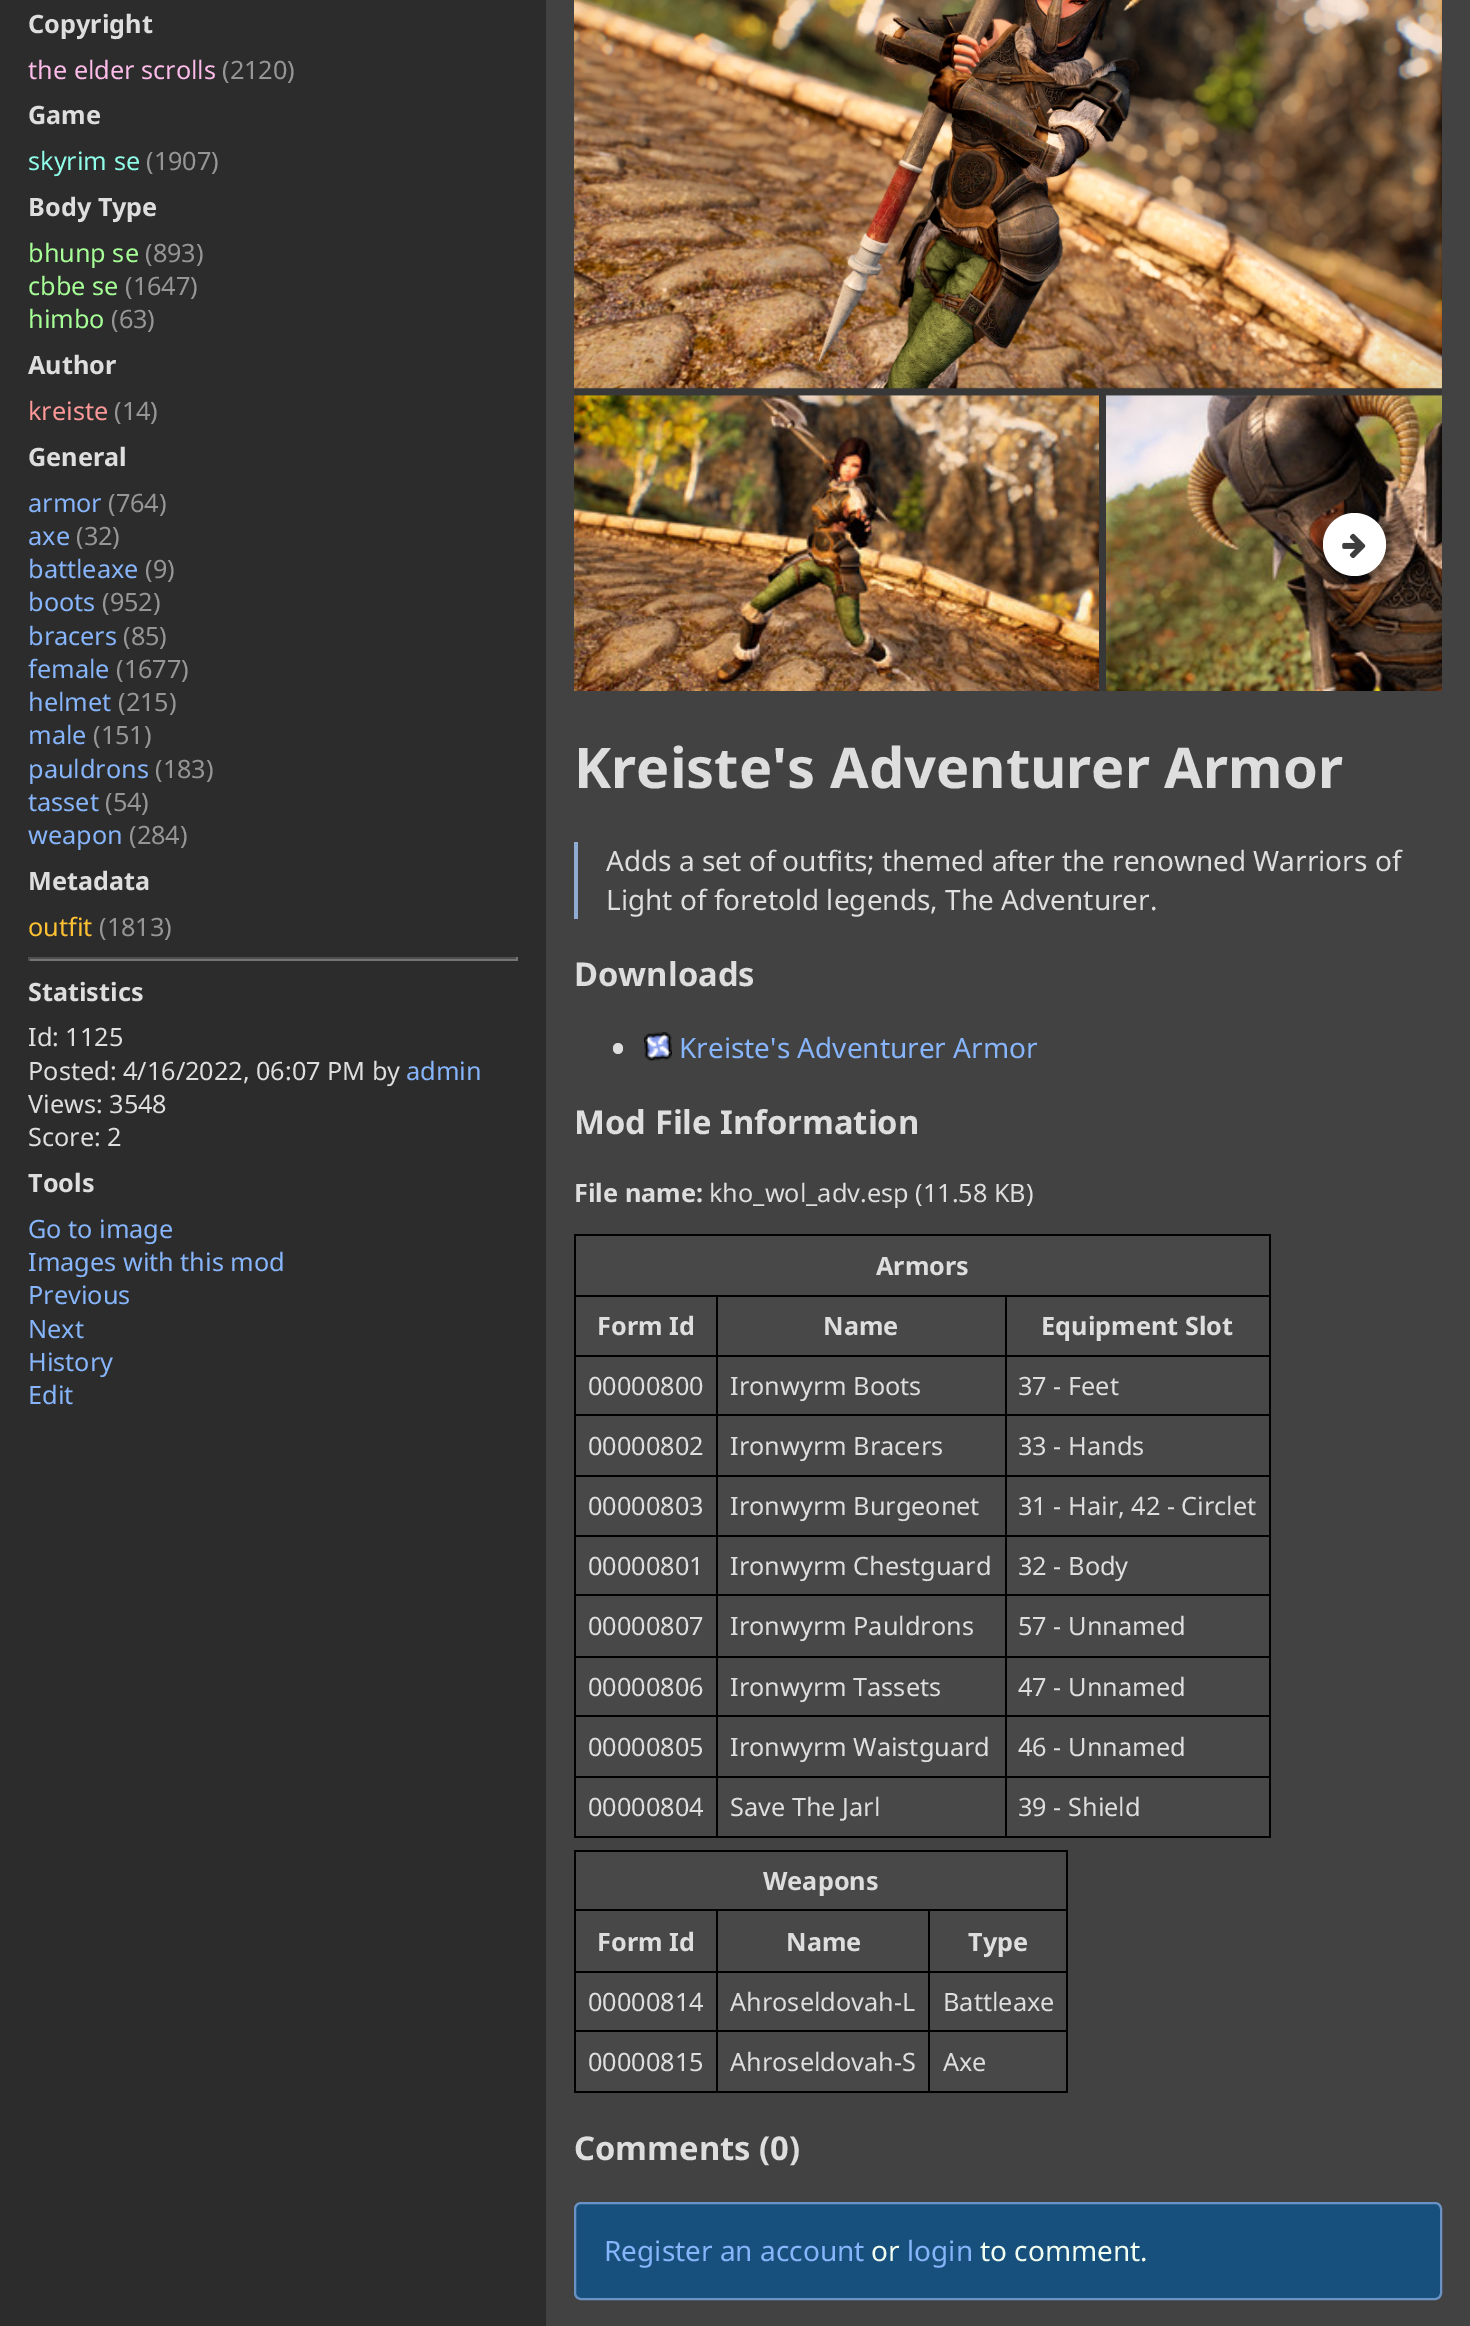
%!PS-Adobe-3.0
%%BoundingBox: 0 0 1470 2326
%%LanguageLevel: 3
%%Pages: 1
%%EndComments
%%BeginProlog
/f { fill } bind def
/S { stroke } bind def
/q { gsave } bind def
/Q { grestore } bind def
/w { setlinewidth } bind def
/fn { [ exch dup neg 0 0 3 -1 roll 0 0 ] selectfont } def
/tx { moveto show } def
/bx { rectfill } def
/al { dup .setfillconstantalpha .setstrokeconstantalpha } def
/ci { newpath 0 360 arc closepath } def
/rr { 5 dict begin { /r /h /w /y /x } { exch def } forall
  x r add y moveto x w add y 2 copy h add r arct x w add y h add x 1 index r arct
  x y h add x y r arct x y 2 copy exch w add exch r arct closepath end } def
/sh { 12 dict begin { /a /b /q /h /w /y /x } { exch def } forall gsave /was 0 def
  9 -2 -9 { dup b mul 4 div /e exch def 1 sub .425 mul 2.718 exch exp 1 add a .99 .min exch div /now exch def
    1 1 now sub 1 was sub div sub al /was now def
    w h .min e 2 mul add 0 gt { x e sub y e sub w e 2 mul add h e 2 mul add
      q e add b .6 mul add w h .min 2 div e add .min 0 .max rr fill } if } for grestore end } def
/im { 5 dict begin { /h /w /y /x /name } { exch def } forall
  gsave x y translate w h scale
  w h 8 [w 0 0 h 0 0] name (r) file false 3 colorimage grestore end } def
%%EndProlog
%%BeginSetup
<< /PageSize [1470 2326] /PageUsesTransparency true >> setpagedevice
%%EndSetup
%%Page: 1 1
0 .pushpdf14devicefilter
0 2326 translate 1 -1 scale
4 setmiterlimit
0.259 setgray
0 0 1470 2326 bx
0.173 setgray
0 0 546 2326 bx
/NotoSans-Bold 25.25 fn
0.871 setgray
(Copyright) 28 33 tx
/NotoSans-Regular 25.25 fn
0.992 0.737 0.914 setrgbcolor
(the elder scrolls) 28 79 tx
0.588 setgray
(\(2120\)) 222 79 tx
/NotoSans-Bold 25.25 fn
0.871 setgray
(Game) 28 124 tx
/NotoSans-Regular 25.25 fn
0.561 1 0.918 setrgbcolor
(skyrim se) 28 170 tx
0.588 setgray
(\(1907\)) 146 170 tx
/NotoSans-Bold 25.25 fn
0.871 setgray
(Body Type) 28 216 tx
/NotoSans-Regular 25.25 fn
0.655 1 0.592 setrgbcolor
(bhunp se) 28 262 tx
0.588 setgray
(\(893\)) 145 262 tx
0.655 1 0.592 setrgbcolor
(cbbe se) 28 295 tx
0.588 setgray
(\(1647\)) 125 295 tx
0.655 1 0.592 setrgbcolor
(himbo) 28 328 tx
0.588 setgray
(\(63\)) 111 328 tx
/NotoSans-Bold 25.25 fn
0.871 setgray
(Author) 28 374 tx
/NotoSans-Regular 25.25 fn
1 0.6 0.6 setrgbcolor
(kreiste) 28 420 tx
0.588 setgray
(\(14\)) 114 420 tx
/NotoSans-Bold 25.25 fn
0.871 setgray
(General) 28 466 tx
/NotoSans-Regular 25.25 fn
0.529 0.71 0.984 setrgbcolor
(armor) 28 512 tx
0.588 setgray
(\(764\)) 108 512 tx
0.529 0.71 0.984 setrgbcolor
(axe) 28 545 tx
0.588 setgray
(\(32\)) 76 545 tx
0.529 0.71 0.984 setrgbcolor
(battleaxe) 28 578 tx
0.588 setgray
(\(9\)) 145 578 tx
0.529 0.71 0.984 setrgbcolor
(boots) 28 611 tx
0.588 setgray
(\(952\)) 102 611 tx
0.529 0.71 0.984 setrgbcolor
(bracers) 28 645 tx
0.588 setgray
(\(85\)) 123 645 tx
0.529 0.71 0.984 setrgbcolor
(female) 28 678 tx
0.588 setgray
(\(1677\)) 116 678 tx
0.529 0.71 0.984 setrgbcolor
(helmet) 28 711 tx
0.588 setgray
(\(215\)) 118 711 tx
0.529 0.71 0.984 setrgbcolor
(male) 28 744 tx
0.588 setgray
(\(151\)) 93 744 tx
0.529 0.71 0.984 setrgbcolor
(pauldrons) 28 778 tx
0.588 setgray
(\(183\)) 155 778 tx
0.529 0.71 0.984 setrgbcolor
(tasset) 28 811 tx
0.588 setgray
(\(54\)) 105 811 tx
0.529 0.71 0.984 setrgbcolor
(weapon) 28 844 tx
0.588 setgray
(\(284\)) 129 844 tx
/NotoSans-Bold 25.25 fn
0.871 setgray
(Metadata) 28 890 tx
/NotoSans-Regular 25.25 fn
1 0.757 0.204 setrgbcolor
(outfit) 28 936 tx
0.588 setgray
(\(1813\)) 99 936 tx
0.306 setgray
28 957 490 2 bx
0.459 setgray
516 957 2 4 bx
28 959 490 2 bx
0.306 setgray
28 957 2 4 bx
/NotoSans-Bold 25.25 fn
0.871 setgray
(Statistics) 28 1001 tx
/NotoSans-Regular 25.25 fn
(Id: 1125) 28 1046 tx
(Posted: 4/16/2022, 06:07 PM by) 28 1080 tx
0.529 0.71 0.984 setrgbcolor
(admin) 406 1080 tx
0.871 setgray
(Views: 3548) 28 1113 tx
(Score: 2) 28 1146 tx
/NotoSans-Bold 25.25 fn
(Tools) 28 1192 tx
/NotoSans-Regular 25.25 fn
0.529 0.71 0.984 setrgbcolor
(Go to image) 28 1238 tx
(Images with this mod) 28 1271 tx
(Previous) 28 1304 tx
(Next) 28 1338 tx
(History) 28 1371 tx
(Edit) 28 1404 tx
0.22 setgray
574 388 868 8 bx
(image0.raw) 574 0 868 389 im
1099 396 7 295 bx
(image1.raw) 574 395 525 296 im
(image2.raw) 1106 395 336 296 im
0 setgray
1316 506 77 77 38.5 3.5 0.5 sh
1 setgray
1354.5 544.5 31.5 ci f
(image3.raw) 1342 533 24 26 im
/NotoSans-Bold 56 fn
0.871 setgray
(Kreiste's Adventurer Armor) 574 788 tx
0.569 0.675 0.831 setrgbcolor
574 842 4 77 bx
/NotoSans-Regular 28 fn
0.871 setgray
(Adds a set of outfits; themed after the renowned Warriors of) 606 871 tx
(Light of foretold legends, The Adventurer.) 606 910 tx
/NotoSans-Bold 32.75 fn
(Downloads) 574 986 tx
613 1043 10 11 5 rr f
(image4.raw) 644 1032 28 29 im
/NotoSans-Regular 28 fn
0.529 0.71 0.984 setrgbcolor
(Kreiste's Adventurer Armor) 679 1058 tx
/NotoSans-Bold 32.75 fn
0.871 setgray
(Mod File Information) 574 1134 tx
/NotoSans-Bold 25.25 fn
(File name:) 574 1202 tx
/NotoSans-Regular 25.25 fn
(kho_wol_adv.esp \(11.58 KB\)) 709 1202 tx
0.282 setgray
576 1236 693 600 bx
0 setgray
574 1234 697 2 bx
574 1295 697 2 bx
574 1355 697 2 bx
574 1414 697 2 bx
574 1475 697 2 bx
574 1535 697 2 bx
574 1594 697 2 bx
574 1656 697 2 bx
574 1715 697 2 bx
574 1776 697 2 bx
1269 1776 2 62 bx
1269 1715 2 63 bx
1269 1656 2 61 bx
1269 1594 2 63 bx
1269 1535 2 61 bx
1269 1475 2 62 bx
1269 1414 2 63 bx
1269 1355 2 61 bx
1269 1295 2 61 bx
1269 1234 2 63 bx
574 1836 697 2 bx
574 1776 2 62 bx
574 1715 2 63 bx
574 1656 2 61 bx
574 1594 2 63 bx
574 1535 2 61 bx
574 1475 2 62 bx
574 1414 2 63 bx
574 1355 2 61 bx
574 1295 2 61 bx
574 1234 2 63 bx
/NotoSans-Bold 25.25 fn
0.871 setgray
(Armors) 876 1275 tx
(Form Id) 597 1335 tx
(Name) 823 1335 tx
(Equipment Slot) 1041 1335 tx
/NotoSans-Regular 25.25 fn
(00000800) 588 1395 tx
(Ironwyrm Boots) 730 1395 tx
(37 - Feet) 1018 1395 tx
(00000802) 588 1455 tx
(Ironwyrm Bracers) 730 1455 tx
(33 - Hands) 1018 1455 tx
(00000803) 588 1515 tx
(Ironwyrm Burgeonet) 730 1515 tx
(31 - Hair, 42 - Circlet) 1018 1515 tx
(00000801) 588 1575 tx
(Ironwyrm Chestguard) 730 1575 tx
(32 - Body) 1018 1575 tx
(00000807) 588 1635 tx
(Ironwyrm Pauldrons) 730 1635 tx
(57 - Unnamed) 1018 1635 tx
(00000806) 588 1696 tx
(Ironwyrm Tassets) 730 1696 tx
(47 - Unnamed) 1018 1696 tx
(00000805) 588 1756 tx
(Ironwyrm Waistguard) 730 1756 tx
(46 - Unnamed) 1018 1756 tx
(00000804) 588 1816 tx
0 setgray
716 1295 2 543 bx
0.871 setgray
(Save The Jarl) 730 1816 tx
0 setgray
1005 1295 2 543 bx
0.871 setgray
(39 - Shield) 1018 1816 tx
0.282 setgray
576 1852 490 239 bx
0 setgray
574 1850 494 2 bx
574 1909 494 2 bx
574 1971 494 2 bx
574 2030 494 2 bx
1066 2030 2 63 bx
1066 1971 2 61 bx
1066 1909 2 63 bx
1066 1850 2 61 bx
574 2091 494 2 bx
574 2030 2 63 bx
574 1971 2 61 bx
574 1909 2 63 bx
574 1850 2 61 bx
/NotoSans-Bold 25.25 fn
0.871 setgray
(Weapons) 763 1890 tx
(Form Id) 597 1951 tx
(Name) 786 1951 tx
(Type) 968 1951 tx
/NotoSans-Regular 25.25 fn
(00000814) 588 2011 tx
(Ahroseldovah-L) 730 2011 tx
(Battleaxe) 943 2011 tx
(00000815) 588 2071 tx
0 setgray
716 1909 2 184 bx
0.871 setgray
(Ahroseldovah-S) 730 2071 tx
0 setgray
928 1909 2 184 bx
0.871 setgray
(Axe) 943 2071 tx
/NotoSans-Bold 32.75 fn
(Comments \(0\)) 574 2160 tx
0.094 0.314 0.49 setrgbcolor
575 2203 866 96 6 rr q f Q
0.42 0.573 0.773 setrgbcolor
2 w
S
/NotoSans-Regular 28 fn
0.529 0.71 0.984 setrgbcolor
(Register an account) 604 2261 tx
0.945 1 0.945 setrgbcolor
(or) 871 2261 tx
0.529 0.71 0.984 setrgbcolor
(login) 907 2261 tx
0.945 1 0.945 setrgbcolor
(to comment.) 980 2261 tx
.poppdf14devicefilter showpage
%%EOF
